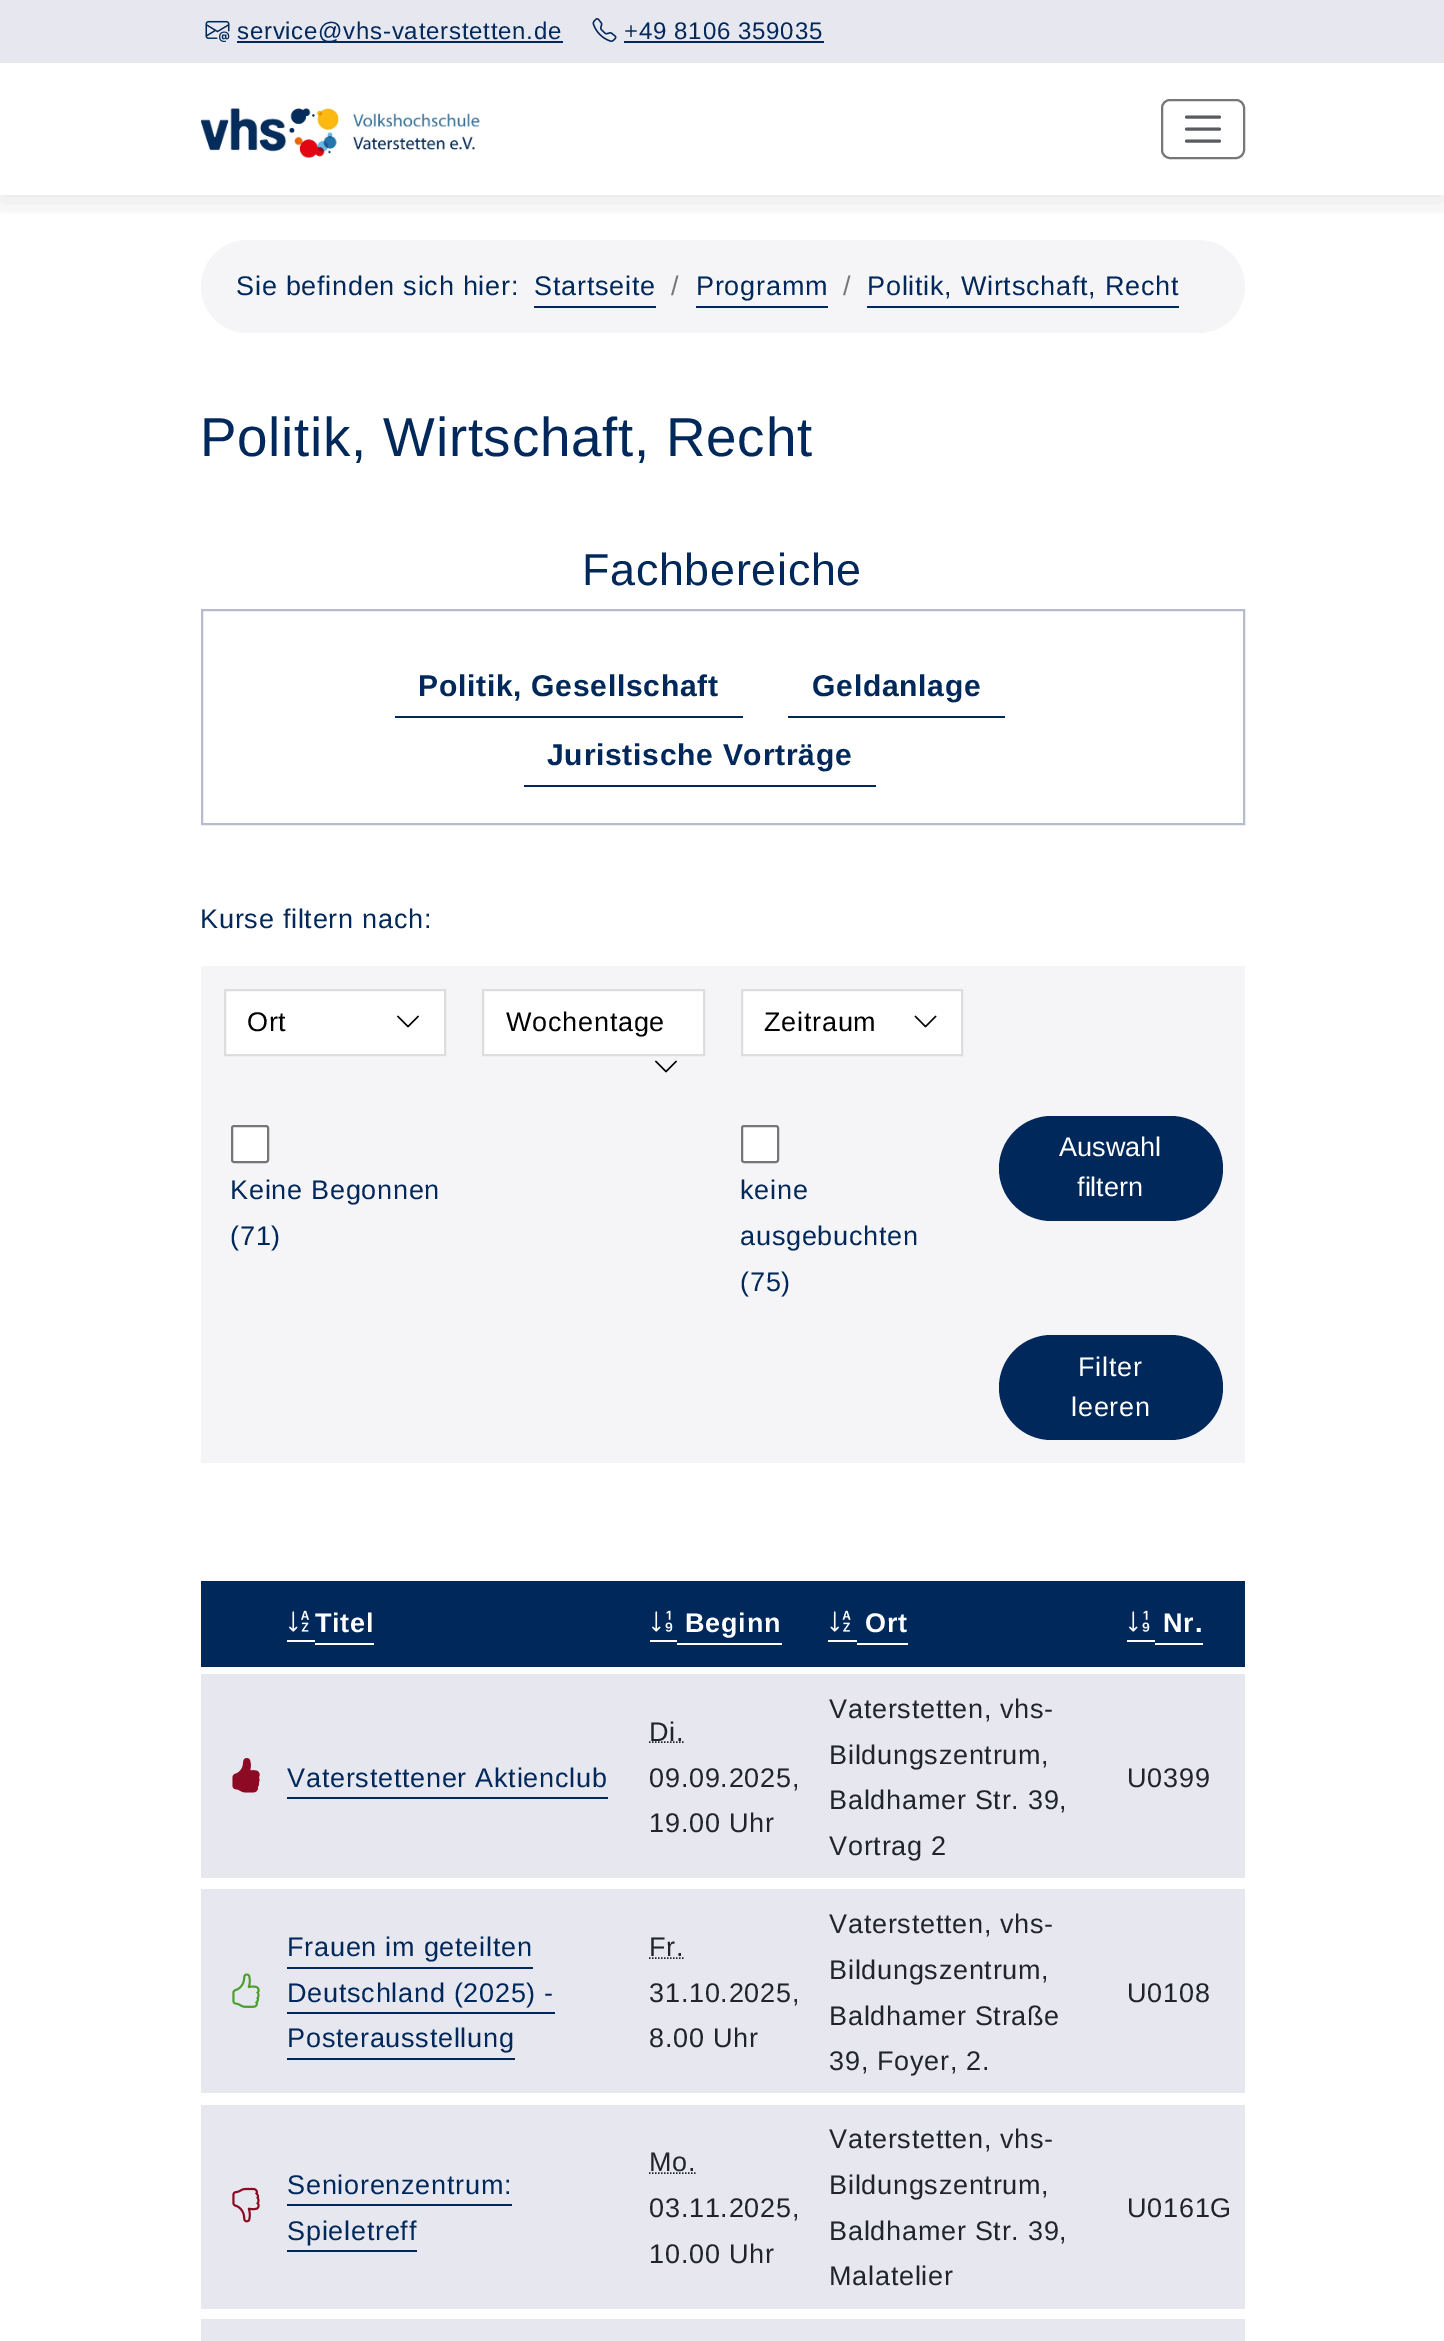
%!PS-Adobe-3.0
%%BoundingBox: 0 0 1444 2341
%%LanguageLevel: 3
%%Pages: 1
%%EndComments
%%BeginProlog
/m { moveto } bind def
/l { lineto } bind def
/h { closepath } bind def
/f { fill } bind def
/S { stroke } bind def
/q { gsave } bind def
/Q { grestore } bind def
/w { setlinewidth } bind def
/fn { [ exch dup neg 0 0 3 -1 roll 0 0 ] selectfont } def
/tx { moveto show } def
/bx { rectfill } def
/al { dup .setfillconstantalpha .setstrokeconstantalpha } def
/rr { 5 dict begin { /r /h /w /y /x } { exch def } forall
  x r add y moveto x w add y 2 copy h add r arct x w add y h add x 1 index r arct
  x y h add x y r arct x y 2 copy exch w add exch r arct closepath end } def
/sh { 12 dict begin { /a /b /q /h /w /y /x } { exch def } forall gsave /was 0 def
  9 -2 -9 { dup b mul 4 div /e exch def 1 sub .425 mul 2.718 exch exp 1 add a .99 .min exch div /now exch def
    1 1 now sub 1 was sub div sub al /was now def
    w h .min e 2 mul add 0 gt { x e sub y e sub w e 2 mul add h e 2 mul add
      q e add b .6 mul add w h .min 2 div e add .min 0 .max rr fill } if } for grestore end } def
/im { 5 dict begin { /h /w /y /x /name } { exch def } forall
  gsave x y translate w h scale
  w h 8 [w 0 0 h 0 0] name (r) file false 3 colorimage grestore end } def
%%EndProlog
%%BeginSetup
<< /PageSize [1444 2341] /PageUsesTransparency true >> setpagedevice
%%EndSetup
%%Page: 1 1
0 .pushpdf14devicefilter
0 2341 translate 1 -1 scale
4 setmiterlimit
1 setgray
0 0 1444 2341 bx
0.961 0.957 0.969 setrgbcolor
201 240 1044 93 46.5 rr f
q
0 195 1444 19 rectclip
0 setgray
0 6 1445 195 0 15 0.1 sh
Q
0.906 0.906 0.937 setrgbcolor
0 0 1444 63 bx
(image0.raw) 205 20 25 22 im
0 0.157 0.353 setrgbcolor
237 41 326 2 bx
/LiberationSans-Regular 24 fn
237 39 m 0.75 0 (service@vhs-vaterstetten.de) ashow
(image1.raw) 592 18 25 24 im
624 39 m 0.75 0 (+49 8106 359035) ashow
624 41 200 2 bx
(image2.raw) 201 108 279 50 im
0.467 setgray
2 w
1162 100 82 58 8 rr S
0.349 0.361 0.373 setrgbcolor
3 w
1 setlinecap
1186.5 117 m 1219.5 117 l 1186.5 129 m 1219.5 129 l 1186.5 141 m 1219.5 141 l S
/LiberationSans-Regular 27 fn
0 0.157 0.353 setrgbcolor
236 295 m 0.75 0 (Sie befinden sich hier:) ashow
534 295 m 0.75 0 (Startseite) ashow
534 306 122 2 bx
0.467 setgray
671 295 m 0.75 0 (/) ashow
0 0.157 0.353 setrgbcolor
696 295 m 0.75 0 (Programm) ashow
696 306 132 2 bx
0.467 setgray
843 295 m 0.75 0 (/) ashow
0 0.157 0.353 setrgbcolor
867 295 m 0.75 0 (Politik, Wirtschaft, Recht) ashow
867 306 312 2 bx
/LiberationSans-Regular 54.75 fn
200 456 m 0.75 0 (Politik, Wirtschaft, Recht) ashow
/LiberationSans-Regular 44.75 fn
582 585 m 0.75 0 (Fachbereiche) ashow
0.714 0.733 0.812 setrgbcolor
2 w
0 setlinecap
202 610 1042 214 rectstroke
0 0.157 0.353 setrgbcolor
395 716 348 2 bx
/LiberationSans-Bold 30 fn
418 696 m 0.75 0 (Politik, Gesellschaft) ashow
788 716 217 2 bx
812 696 m 0.75 0 (Geldanlage) ashow
524 785 352 2 bx
547 765 m 0.75 0 (Juristische Vorträge) ashow
/LiberationSans-Regular 27 fn
200 928 m 0.75 0 (Kurse filtern nach:) ashow
0.961 0.957 0.969 setrgbcolor
201 966 1044 497 bx
1 setgray
225 990 m 445 990 l 445 1055 l 225 1055 l h q f Q
0.867 setgray
S
0 setgray
247 1031 m 0.75 0 (Ort) ashow
(image3.raw) 397 1015 22 13 im
1 setgray
483 990 m 704 990 l 704 1055 l 483 1055 l h q f Q
0.867 setgray
S
0 setgray
506 1031 m 0.75 0 (Wochentage) ashow
(image4.raw) 655 1060 22 13 im
1 setgray
742 990 m 962 990 l 962 1055 l 742 1055 l h q f Q
0.867 setgray
S
0 setgray
764 1031 m 0.75 0 (Zeitraum) ashow
(image5.raw) 914 1015 23 13 im
0 0.157 0.353 setrgbcolor
999 1116 224 105 52.5 rr f
1 setgray
(Auswahl) 1059 1156 tx
(filtern) 1077 1196 tx
232 1126 36 36 2 rr q f Q
0.463 setgray
S
0 0.157 0.353 setrgbcolor
230 1199 m 0.75 0 (Keine Begonnen) ashow
230 1245 m 0.75 0 (\(71\)) ashow
1 setgray
742 1126 36 36 2 rr q f Q
0.463 setgray
S
0 0.157 0.353 setrgbcolor
740 1199 m 0.75 0 (keine) ashow
740 1245 m 0.75 0 (ausgebuchten) ashow
740 1291 m 0.75 0 (\(75\)) ashow
999 1335 224 105 52.5 rr f
1 setgray
1078 1376 m 0.75 0 (Filter) ashow
1071 1416 m 0.75 0 (leeren) ashow
0 0.157 0.353 setrgbcolor
201 1581 1044 86 bx
1 setgray
287 1640 28 2 bx
315 1643 59 2 bx
(image6.raw) 289 1610 20 22 im
/LiberationSans-Bold 27 fn
315 1632 m 0.75 0 (Titel) ashow
650 1640 27 2 bx
677 1643 105 2 bx
(image7.raw) 652 1610 21 22 im
685 1632 m 0.75 0 (Beginn) ashow
828 1640 29 2 bx
857 1643 51 2 bx
(image8.raw) 830 1610 21 22 im
865 1632 m 0.75 0 (Ort) ashow
1127 1640 28 2 bx
1155 1643 48 2 bx
(image7.raw) 1129 1610 21 22 im
1163 1632 m 0.75 0 (Nr.) ashow
0.906 0.906 0.937 setrgbcolor
201 1674 1044 204 bx
(image9.raw) 232 1758 28 35 im
/LiberationSans-Regular 27 fn
0 0.157 0.353 setrgbcolor
287 1787 m 0.75 0 (Vaterstettener Aktienclub) ashow
287 1797 321 2 bx
0.129 0.145 0.161 setrgbcolor
649 1741 m 0.75 0 (Di.) ashow
1.5 w
[1.5 1.5] 0 setdash
649 1742 m 684.5 1742 l S
649 1787 m 0.75 0 (09.09.2025,) ashow
649 1832 m 0.75 0 (19.00 Uhr) ashow
829 1718 m 0.75 0 (Vaterstetten, vhs-) ashow
829 1764 m 0.75 0 (Bildungszentrum,) ashow
829 1809 m 0.75 0 (Baldhamer Str. 39,) ashow
829 1855 m 0.75 0 (Vortrag 2) ashow
1127 1787 m 0.75 0 (U0399) ashow
0.906 0.906 0.937 setrgbcolor
201 1889 1044 204 bx
(image10.raw) 232 1973 28 35 im
0 0.157 0.353 setrgbcolor
287 1956 m 0.75 0 (Frauen im geteilten) ashow
287 1967 246 2 bx
287 2002 m 0.75 0 (Deutschland \(2025\) -) ashow
287 2012 268 2 bx
287 2047 m 0.75 0 (Posterausstellung) ashow
287 2058 228 2 bx
0.129 0.145 0.161 setrgbcolor
649 1956 m 0.75 0 (Fr.) ashow
649 1958 m 684.5 1958 l S
649 2002 m 0.75 0 (31.10.2025,) ashow
649 2047 m 0.75 0 (8.00 Uhr) ashow
829 1933 m 0.75 0 (Vaterstetten, vhs-) ashow
829 1979 m 0.75 0 (Bildungszentrum,) ashow
829 2025 m 0.75 0 (Baldhamer Straße) ashow
829 2070 m 0.75 0 (39, Foyer, 2.) ashow
1127 2002 m 0.75 0 (U0108) ashow
0.906 0.906 0.937 setrgbcolor
201 2105 1044 204 bx
(image11.raw) 232 2187 28 36 im
0 0.157 0.353 setrgbcolor
287 2194 m 0.75 0 (Seniorenzentrum:) ashow
287 2204 225 2 bx
287 2240 m 0.75 0 (Spieletreff) ashow
287 2250 130 2 bx
0.129 0.145 0.161 setrgbcolor
649 2171 m 0.75 0 (Mo.) ashow
649 2173 m 696.5 2173 l S
649 2217 m 0.75 0 (03.11.2025,) ashow
649 2263 m 0.75 0 (10.00 Uhr) ashow
829 2148 m 0.75 0 (Vaterstetten, vhs-) ashow
829 2194 m 0.75 0 (Bildungszentrum,) ashow
829 2240 m 0.75 0 (Baldhamer Str. 39,) ashow
829 2285 m 0.75 0 (Malatelier) ashow
1127 2217 m 0.75 0 (U0161G) ashow
0.906 0.906 0.937 setrgbcolor
201 2319 1044 22 bx
.poppdf14devicefilter showpage
%%EOF
